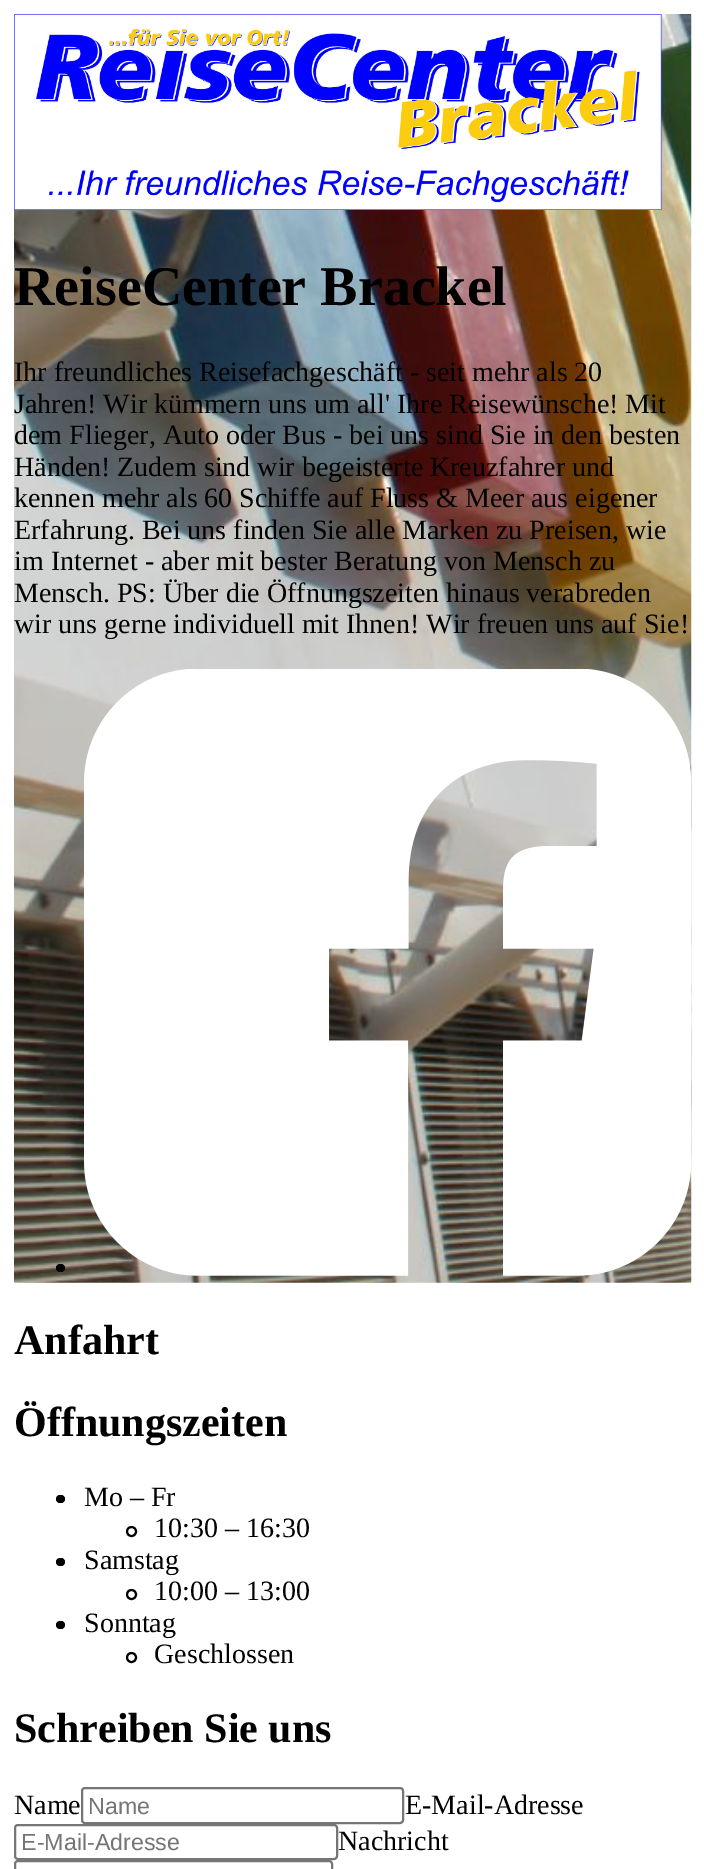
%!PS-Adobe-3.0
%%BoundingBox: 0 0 704 1869
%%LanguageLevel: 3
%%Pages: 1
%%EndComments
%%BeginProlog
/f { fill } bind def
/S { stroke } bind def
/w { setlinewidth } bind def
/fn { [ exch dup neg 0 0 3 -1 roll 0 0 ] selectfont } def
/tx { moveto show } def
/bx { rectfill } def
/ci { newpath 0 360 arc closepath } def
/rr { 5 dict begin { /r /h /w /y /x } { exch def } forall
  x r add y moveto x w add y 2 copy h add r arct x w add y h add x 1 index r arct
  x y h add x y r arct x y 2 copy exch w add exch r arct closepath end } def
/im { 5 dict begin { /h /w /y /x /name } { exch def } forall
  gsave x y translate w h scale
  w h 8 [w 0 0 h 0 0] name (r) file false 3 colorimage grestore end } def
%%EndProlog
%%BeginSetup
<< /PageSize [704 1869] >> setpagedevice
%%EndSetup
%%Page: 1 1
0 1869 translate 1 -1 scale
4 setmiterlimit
1 setgray
0 0 704 1869 bx
(image0.raw) 14 14 678 1269 im
(image1.raw) 14 14 648 196 im
/LiberationSerif-Bold 56 fn
0 setgray
(ReiseCenter Brackel) 14 305 tx
/LiberationSerif-Regular 28 fn
(Ihr freundliches Reisefachgeschäft - seit mehr als 20) 14 381 tx
(Jahren! Wir kümmern uns um all' Ihre Reisewünsche! Mit) 14 413 tx
(dem Flieger, Auto oder Bus - bei uns sind Sie in den besten) 14 444 tx
(Händen! Zudem sind wir begeisterte Kreuzfahrer und) 14 476 tx
(kennen mehr als 60 Schiffe auf Fluss & Meer aus eigener) 14 507 tx
(Erfahrung. Bei uns finden Sie alle Marken zu Preisen, wie) 14 539 tx
(im Internet - aber mit bester Beratung von Mensch zu) 14 570 tx
(Mensch. PS: Über die Öffnungszeiten hinaus verabreden) 14 602 tx
(wir uns gerne individuell mit Ihnen! Wir freuen uns auf Sie!) 14 633 tx
56 1264 9 8 4 rr f
(image2.raw) 84 669 607 607 im
/LiberationSerif-Bold 42 fn
(Anfahrt) 14 1354 tx
(Öffnungszeiten) 14 1436 tx
56 1495 9 8 4 rr f
/LiberationSerif-Regular 28 fn
(Mo – Fr) 84 1506 tx
2 w
131.5 1531.5 4.5 ci S
(10:30 – 16:30) 154 1537 tx
56 1558 9 8 4 rr f
(Samstag) 84 1569 tx
131.5 1594.5 4.5 ci S
(10:00 – 13:00) 154 1600 tx
56 1621 9 8 4 rr f
(Sonntag) 84 1632 tx
131.5 1657.5 4.5 ci S
(Geschlossen) 154 1663 tx
/LiberationSerif-Bold 42 fn
(Schreiben Sie uns) 14 1742 tx
/LiberationSerif-Regular 28 fn
(Name) 14 1814 tx
0.463 setgray
82 1788 321 35 3 rr S
/LiberationSans-Regular 23.25 fn
0.459 setgray
(Name) 88 1814 tx
/LiberationSerif-Regular 28 fn
0 setgray
(E-Mail-Adresse) 405 1814 tx
0.463 setgray
15 1825 322 34 3 rr S
/LiberationSans-Regular 23.25 fn
0.459 setgray
(E-Mail-Adresse) 21 1850 tx
/LiberationSerif-Regular 28 fn
0 setgray
(Nachricht) 338 1850 tx
0.463 setgray
15 1861 317 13 3 rr S
showpage
%%EOF
